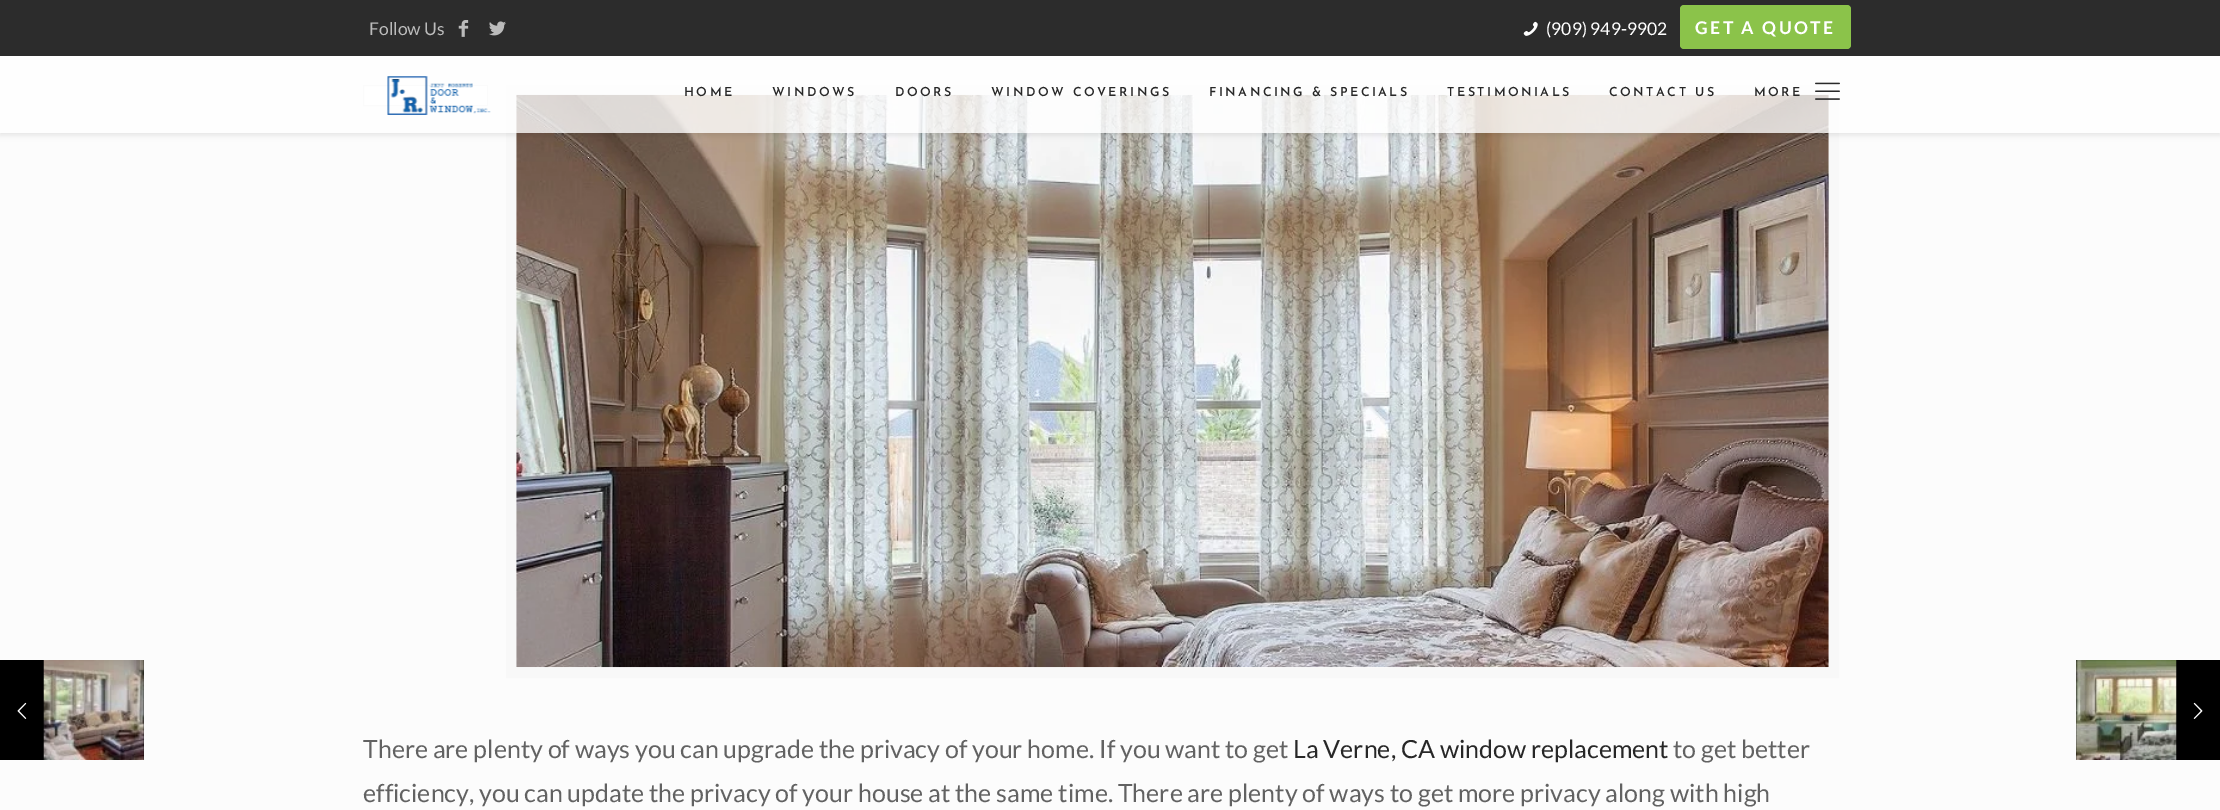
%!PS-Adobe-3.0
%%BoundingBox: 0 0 2220 810
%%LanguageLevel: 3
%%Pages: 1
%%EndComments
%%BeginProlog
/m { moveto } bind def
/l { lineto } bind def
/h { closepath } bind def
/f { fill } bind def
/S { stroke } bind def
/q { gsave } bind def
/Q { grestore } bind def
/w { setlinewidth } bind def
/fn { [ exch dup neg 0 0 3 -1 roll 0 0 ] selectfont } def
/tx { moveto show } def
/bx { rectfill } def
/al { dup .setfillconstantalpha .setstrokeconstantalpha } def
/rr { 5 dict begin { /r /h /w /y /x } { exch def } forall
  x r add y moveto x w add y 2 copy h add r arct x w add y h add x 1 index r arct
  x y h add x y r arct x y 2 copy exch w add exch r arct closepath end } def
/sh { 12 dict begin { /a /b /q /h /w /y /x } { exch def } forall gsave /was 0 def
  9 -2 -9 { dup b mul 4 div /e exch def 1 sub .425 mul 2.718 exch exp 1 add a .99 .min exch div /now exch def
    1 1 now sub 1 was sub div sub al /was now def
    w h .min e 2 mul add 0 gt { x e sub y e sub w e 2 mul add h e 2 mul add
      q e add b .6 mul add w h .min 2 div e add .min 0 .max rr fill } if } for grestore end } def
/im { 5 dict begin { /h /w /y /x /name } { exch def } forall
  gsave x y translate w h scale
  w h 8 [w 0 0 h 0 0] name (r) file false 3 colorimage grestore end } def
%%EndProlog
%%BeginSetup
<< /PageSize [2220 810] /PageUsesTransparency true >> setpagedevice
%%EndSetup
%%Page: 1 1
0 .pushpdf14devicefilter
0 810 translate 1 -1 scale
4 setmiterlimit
0.988 setgray
0 0 2220 810 bx
0 setgray
0 660 44 100 bx
(image0.raw) 17 702 10 17 im
(image1.raw) 43 660 101 100 im
0.173 setgray
0 0 2220 56 bx
/Lato-Regular 17.5 fn
0.733 setgray
(Follow Us) 369 35 tx
(image2.raw) 458 20 11 17 im
(image3.raw) 489 21 17 15 im
(image4.raw) 1523 21 15 15 im
1 setgray
(\(909\) 949-9902) 1546 35 tx
0.545 0.765 0.29 setrgbcolor
1680 5 171 44 4 rr f
/Lato-Bold 17.5 fn
1 setgray
1695 34 m 2.5 0 (GET A QUOTE) ashow
363.5 85.5 m 487.5 85.5 l 487.5 105.5 l 363.5 105.5 l h q f Q
0.922 setgray
S
0.973 setgray
10 w
511 90 1323 583 rectstroke
(image7.raw) 516 94 1313 574 im
q
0 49 m 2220 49 l 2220 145 l 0 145 l h 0 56 m 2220 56 l 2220 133 l 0 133 l h eoclip newpath
0 setgray
0 59 2220 76 0 3 0.1 sh
Q
0.78 al
1 setgray
0 56 2220 77 bx
1 al
(image5.raw) 387 76 104 39 im
/JosefinSans-SemiBold 12.5 fn
0.153 setgray
684 96 m 2.5 0 (HOME) ashow
772 96 m 2.5 0 (WINDOWS) ashow
895 96 m 2.5 0 (DOORS) ashow
991 96 m 2.5 0 (WINDOW COVERINGS) ashow
1209 96 m 2.5 0 (FINANCING & SPECIALS) ashow
1447 96 m 2.5 0 (TESTIMONIALS) ashow
1609 96 m 2.5 0 (CONTACT US) ashow
1754 96 m 2.5 0 (MORE) ashow
(image6.raw) 1815 82 25 18 im
/Lato-Regular 25 fn
0.384 setgray
(There are plenty of ways you can upgrade the privacy of your home. If you want to get) 363 758 tx
0.153 setgray
(La Verne, CA window replacement) 1293 758 tx
0.384 setgray
(to get better) 1673 758 tx
(efficiency, you can update the privacy of your house at the same time. There are plenty of ways to get more privacy along with high) 363 802 tx
0 setgray
2176 660 44 100 bx
(image8.raw) 2076 660 101 100 im
(image9.raw) 2193 702 10 17 im
.poppdf14devicefilter showpage
%%EOF
